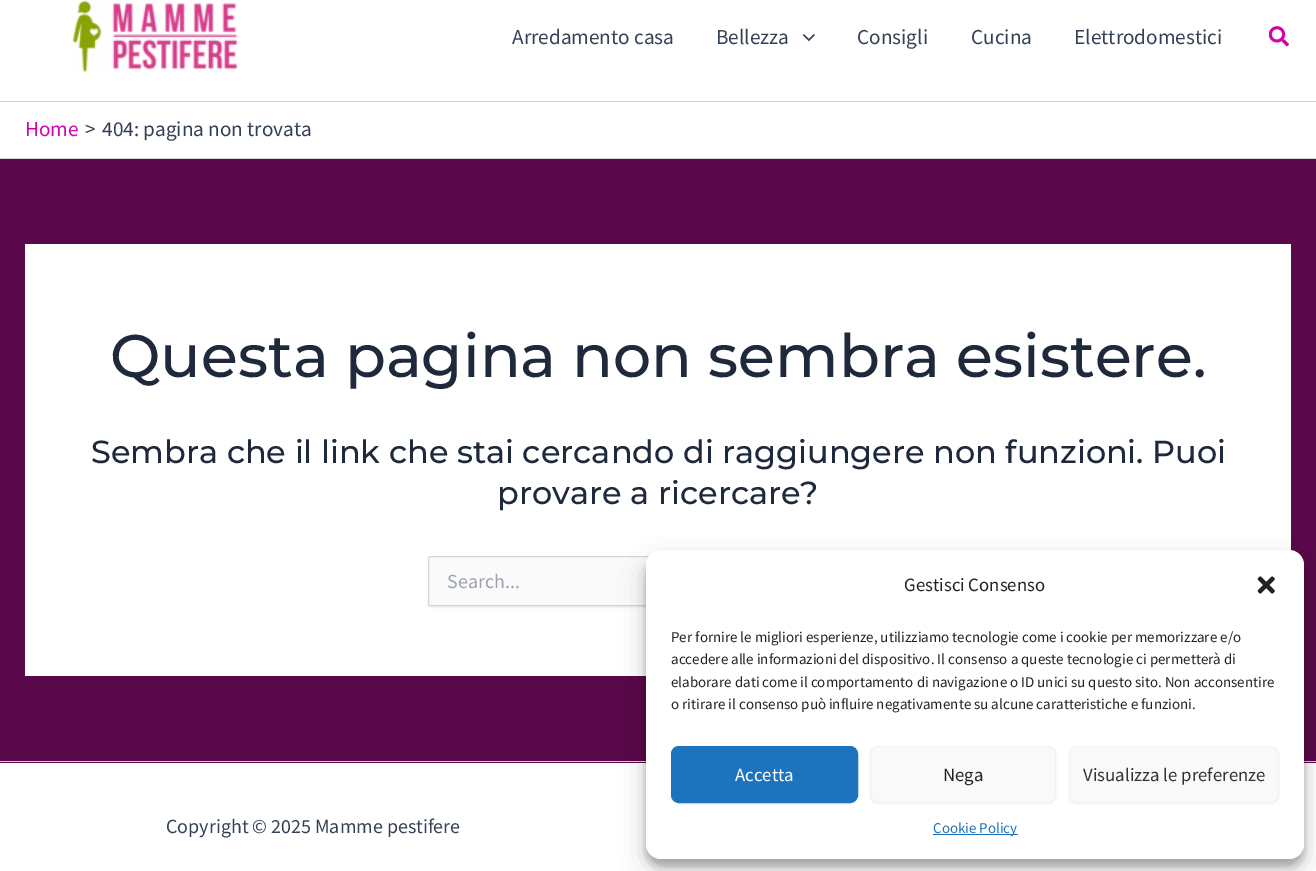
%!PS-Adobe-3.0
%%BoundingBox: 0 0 1316 871
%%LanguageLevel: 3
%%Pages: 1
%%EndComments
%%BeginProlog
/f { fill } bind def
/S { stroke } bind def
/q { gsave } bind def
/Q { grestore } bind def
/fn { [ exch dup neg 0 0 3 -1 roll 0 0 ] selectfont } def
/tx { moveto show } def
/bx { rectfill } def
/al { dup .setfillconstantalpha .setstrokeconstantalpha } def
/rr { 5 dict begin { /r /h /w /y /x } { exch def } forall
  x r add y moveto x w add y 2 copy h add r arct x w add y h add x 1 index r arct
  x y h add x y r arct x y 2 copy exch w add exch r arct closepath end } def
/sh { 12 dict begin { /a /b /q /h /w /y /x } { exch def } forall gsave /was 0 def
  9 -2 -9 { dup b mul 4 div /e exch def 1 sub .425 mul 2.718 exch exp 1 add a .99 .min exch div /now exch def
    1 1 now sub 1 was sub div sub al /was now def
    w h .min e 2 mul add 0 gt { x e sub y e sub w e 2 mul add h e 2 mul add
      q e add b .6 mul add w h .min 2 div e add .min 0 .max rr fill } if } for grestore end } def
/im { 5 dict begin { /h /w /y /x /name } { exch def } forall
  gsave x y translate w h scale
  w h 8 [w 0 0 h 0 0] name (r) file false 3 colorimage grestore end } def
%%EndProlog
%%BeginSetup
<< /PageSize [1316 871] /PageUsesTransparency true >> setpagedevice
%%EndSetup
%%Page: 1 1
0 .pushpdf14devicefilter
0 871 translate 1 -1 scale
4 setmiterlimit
0.349 0.031 0.286 setrgbcolor
0 0 1316 871 bx
1 setgray
0 0 1316 158 bx
0.82 0.835 0.859 setrgbcolor
0 101 1316 1 bx
(image0.raw) 72 0 166 73 im
/SourceSansPro-Regular 21.25 fn
0.2 0.255 0.333 setrgbcolor
(Arredamento casa) 512 44 tx
(Bellezza) 716 44 tx
(image1.raw) 803 34 12 8 im
(Consigli) 857 44 tx
(Cucina) 971 44 tx
(Elettrodomestici) 1074 44 tx
(image2.raw) 1269 26 20 21 im
0.82 0.835 0.859 setrgbcolor
0 158 1316 1 bx
0.82 0.016 0.659 setrgbcolor
(Home) 25 136 tx
0.2 0.255 0.333 setrgbcolor
(>) 85 136 tx
(404: pagina non trovata) 102 136 tx
1 setgray
25 244 1266 432 bx
/Montserrat-Medium 60 fn
0.118 0.161 0.231 setrgbcolor
(Questa pagina non sembra esistere.) 110 377 tx
/Montserrat-Medium 31.9 fn
(Sembra che il link che stai cercando di raggiungere non funzioni. Puoi) 91 463 tx
(provare a ricercare?) 497 504 tx
0 setgray
428 558 462 50 2.5 1 0.05 sh
0.98 setgray
428.5 556.5 461 49 2 rr q f Q
0.82 0.835 0.859 setrgbcolor
S
/SourceSansPro-Regular 20 fn
0.612 0.639 0.686 setrgbcolor
(Search...) 447 588 tx
1 setgray
0 763 1316 108 bx
0.82 0.835 0.859 setrgbcolor
0 761 1316 1 bx
0.2 0.255 0.333 setrgbcolor
(Copyright © 2025 Mamme pestifere) 166 833 tx
0 setgray
646 558 658 308 15 4 0.23 sh
646 563 658 308 15 12.5 0.19 sh
1 setgray
646 550 658 309 15 rr f
/SourceSansPro-Regular 18.75 fn
0.133 setgray
(Gestisci Consenso) 904 591 tx
(image3.raw) 1257 576 18 18 im
/SourceSansPro-Regular 15 fn
(Per fornire le migliori esperienze, utilizziamo tecnologie come i cookie per memorizzare e/o) 671 642 tx
(accedere alle informazioni del dispositivo. Il consenso a queste tecnologie ci permetterà di) 671 664 tx
(elaborare dati come il comportamento di navigazione o ID unici su questo sito. Non acconsentire) 671 687 tx
(o ritirare il consenso può influire negativamente su alcune caratteristiche e funzioni.) 671 709 tx
0 setgray
671 748 187 56 8 1 0.05 sh
0.118 0.451 0.745 setrgbcolor
671.5 746.5 186 56 7.5 rr q f Q
S
/SourceSansPro-Regular 18.75 fn
1 setgray
(Accetta) 735 781 tx
0 setgray
870 748 186 56 8 1 0.05 sh
0.976 setgray
870.5 746.5 185 56 7.5 rr q f Q
0.949 setgray
S
0.133 setgray
(Nega) 943 781 tx
0 setgray
1069 748 210 56 8 1 0.05 sh
0.976 setgray
1069.5 746.5 209 56 7.5 rr q f Q
0.949 setgray
S
0.2 setgray
(Visualizza le preferenze) 1083 781 tx
0.118 0.451 0.745 setrgbcolor
933 834 85 1 bx
/SourceSansPro-Regular 15 fn
(Cookie Policy) 933 833 tx
.poppdf14devicefilter showpage
%%EOF
